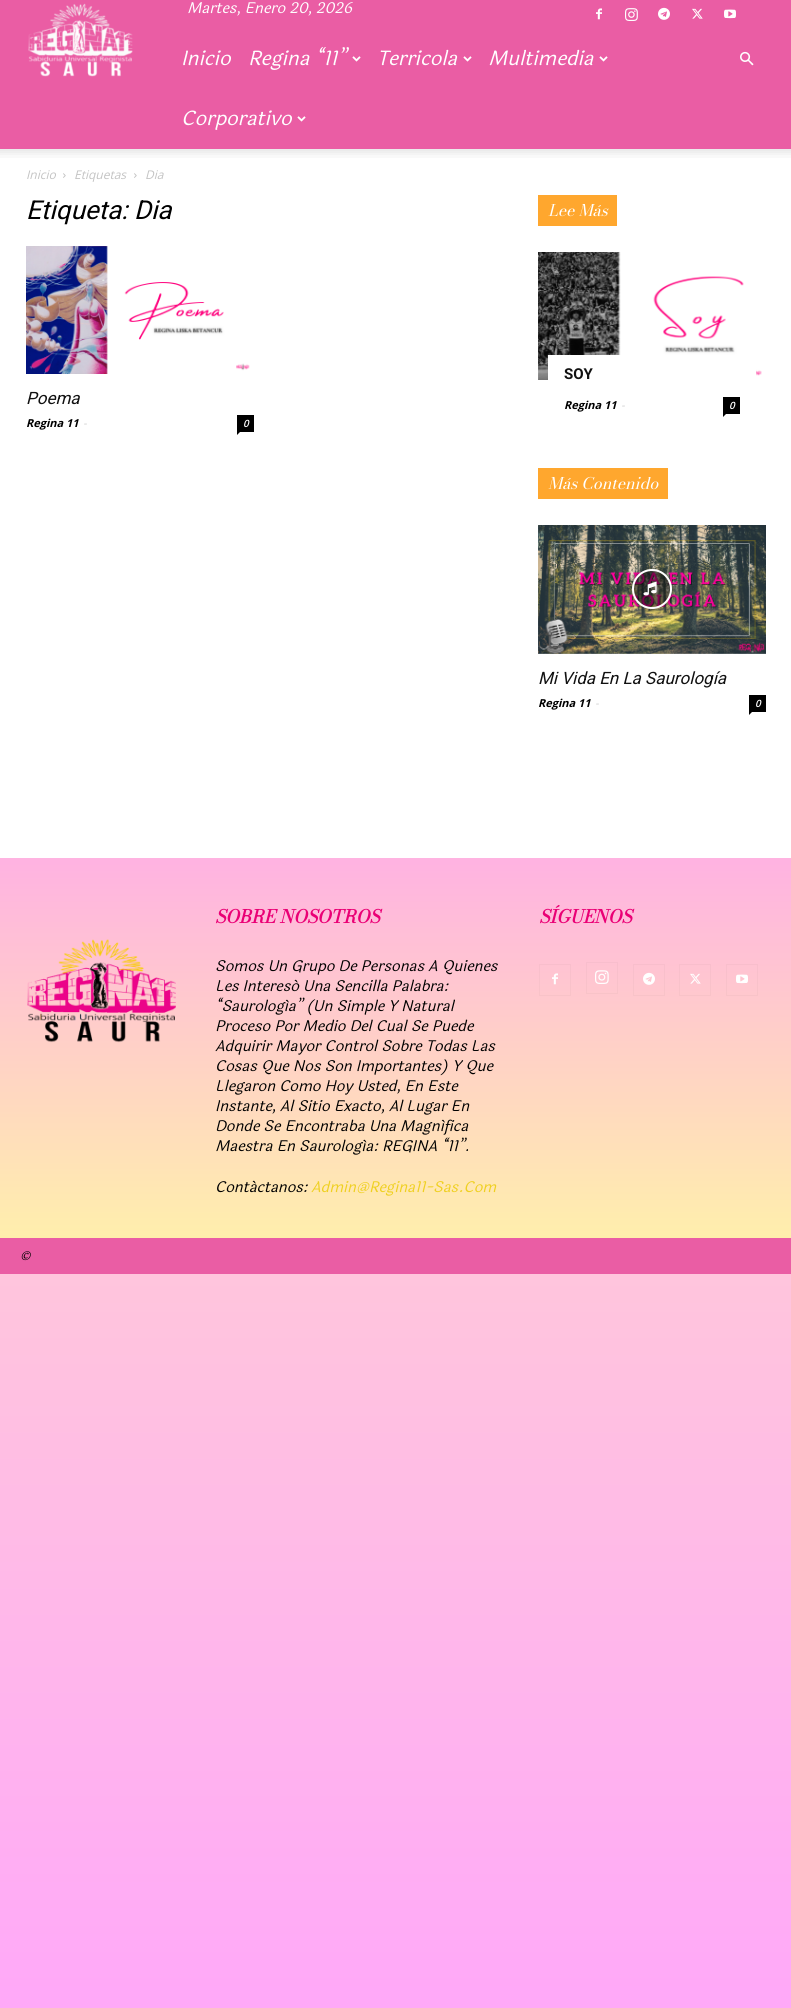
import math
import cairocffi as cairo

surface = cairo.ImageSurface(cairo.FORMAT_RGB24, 791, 2008)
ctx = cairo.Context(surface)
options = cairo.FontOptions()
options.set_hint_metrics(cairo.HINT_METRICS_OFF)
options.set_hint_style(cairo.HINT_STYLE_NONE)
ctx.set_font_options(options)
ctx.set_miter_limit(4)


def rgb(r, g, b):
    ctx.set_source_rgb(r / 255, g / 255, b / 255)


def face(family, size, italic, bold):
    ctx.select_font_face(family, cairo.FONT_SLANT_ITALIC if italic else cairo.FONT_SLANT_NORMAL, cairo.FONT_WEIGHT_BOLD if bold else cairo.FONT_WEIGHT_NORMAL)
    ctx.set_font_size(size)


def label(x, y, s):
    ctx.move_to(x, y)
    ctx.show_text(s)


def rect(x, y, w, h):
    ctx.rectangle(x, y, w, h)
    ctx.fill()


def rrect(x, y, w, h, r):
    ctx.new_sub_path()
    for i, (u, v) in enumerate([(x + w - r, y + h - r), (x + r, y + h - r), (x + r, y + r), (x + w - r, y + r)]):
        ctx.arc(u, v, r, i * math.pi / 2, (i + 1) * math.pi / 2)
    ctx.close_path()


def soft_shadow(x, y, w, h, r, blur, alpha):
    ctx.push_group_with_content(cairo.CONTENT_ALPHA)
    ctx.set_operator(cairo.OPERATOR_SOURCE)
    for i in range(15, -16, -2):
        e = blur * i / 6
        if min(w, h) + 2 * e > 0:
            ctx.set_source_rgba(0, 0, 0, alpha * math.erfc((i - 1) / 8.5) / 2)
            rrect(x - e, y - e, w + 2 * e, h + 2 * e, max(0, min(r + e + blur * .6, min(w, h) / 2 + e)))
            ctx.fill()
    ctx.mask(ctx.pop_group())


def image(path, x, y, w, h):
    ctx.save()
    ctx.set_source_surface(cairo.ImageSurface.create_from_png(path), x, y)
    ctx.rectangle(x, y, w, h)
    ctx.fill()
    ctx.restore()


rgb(255, 255, 255)
ctx.paint()
rgb(234, 93, 164)
rect(0, 0, 791, 149)
image('image0.png', 28, 3, 105, 74)
face('Laila', 15, 1, 0)
rgb(255, 255, 255)
label(187, 13, 'Martes, Enero 20, 2026')
image('image1.png', 596, 8, 6, 12)
image('image2.png', 625, 8, 13, 13)
image('image3.png', 658, 7, 12, 13)
image('image4.png', 692, 8, 11, 11)
image('image5.png', 724, 9, 12, 10)
face('Laila', 20, 1, 0)
label(181, 65, 'Inicio')
label(248, 65, 'Regina “11”')
image('image6.png', 352, 56, 9, 6)
label(377, 65, 'Terricola')
image('image6.png', 463, 56, 9, 6)
label(488, 65, 'Multimedia')
image('image6.png', 599, 56, 9, 6)
label(181, 125, 'Corporativo')
image('image6.png', 297, 116, 9, 6)
image('image7.png', 740, 51, 14, 15)
image('image8.png', 0, 149, 791, 9)
face('Open Sans', 12, 1, 0)
rgb(195, 195, 195)
label(26, 179, 'Inicio')
image('image9.png', 63, 173, 3, 5)
label(74, 179, 'Etiquetas')
image('image9.png', 134, 173, 3, 5)
label(145, 179, 'Dia')
face('Roboto', 26, 1, 0)
rgb(0, 0, 0)
label(26, 219, 'Etiqueta: Dia')
image('image10.png', 26, 246, 224, 128)
face('Roboto', 17, 1, 0)
rgb(17, 17, 17)
label(26, 404, 'Poema')
face('Open Sans', 11, 1, 1)
rgb(0, 0, 0)
label(26, 427, 'Regina 11')
face('Open Sans', 11, 1, 0)
rgb(204, 204, 204)
label(83, 427, '-')
rgb(0, 0, 0)
rect(237, 415, 17, 17)
face('Open Sans SemiBold', 10, 1, 0)
rgb(255, 255, 255)
label(243, 427, '0')
rgb(0, 0, 0)
ctx.new_path()
ctx.move_to(237, 432)
ctx.line_to(240, 432)
ctx.line_to(237, 435)
ctx.close_path()
ctx.fill()
rgb(255, 167, 46)
rect(538, 195, 79, 31)
face('Bodoni Moda', 16, 1, 0)
rgb(255, 255, 255)
label(548, 216, 'Lee Más')
image('image11.png', 538, 252, 224, 128)
rect(548, 355, 208, 25)
face('Roboto', 15, 0, 1)
rgb(17, 17, 17)
label(564, 379, 'SOY')
face('Open Sans', 11, 1, 1)
rgb(0, 0, 0)
label(564, 409, 'Regina 11')
face('Open Sans', 11, 1, 0)
rgb(204, 204, 204)
label(621, 409, '-')
rgb(0, 0, 0)
rect(723, 397, 17, 17)
face('Open Sans SemiBold', 10, 1, 0)
rgb(255, 255, 255)
label(729, 409, '0')
rgb(0, 0, 0)
ctx.new_path()
ctx.move_to(723, 414)
ctx.line_to(726, 414)
ctx.line_to(723, 417)
ctx.close_path()
ctx.fill()
rgb(255, 167, 46)
rect(538, 468, 130, 31)
face('Bodoni Moda', 16, 1, 0)
rgb(255, 255, 255)
label(548, 489, 'Más Contenido')
image('image12.png', 538, 525, 228, 129)
ctx.save()
ctx.set_fill_rule(cairo.FILL_RULE_EVEN_ODD)
ctx.new_path()
ctx.move_to(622, 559)
ctx.line_to(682, 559)
ctx.line_to(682, 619)
ctx.line_to(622, 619)
ctx.close_path()
ctx.move_to(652, 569)
ctx.curve_to(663, 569, 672, 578, 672, 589)
ctx.curve_to(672, 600, 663, 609, 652, 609)
ctx.curve_to(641, 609, 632, 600, 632, 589)
ctx.curve_to(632, 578, 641, 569, 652, 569)
ctx.close_path()
ctx.clip()
rgb(0, 0, 0)
soft_shadow(632, 569, 40, 40, 20, 3, 0.4)
ctx.restore()
ctx.set_source_rgba(0, 0, 0, 0.48)
ctx.arc(652, 589, 19, 0, 2 * math.pi)
ctx.fill_preserve()
rgb(255, 255, 255)
ctx.stroke()
image('image13.png', 643, 581, 14, 15)
face('Roboto', 17, 1, 0)
rgb(17, 17, 17)
label(538, 684, 'Mi Vida En La Saurología')
face('Open Sans', 11, 1, 1)
rgb(0, 0, 0)
label(538, 707, 'Regina 11')
face('Open Sans', 11, 1, 0)
rgb(204, 204, 204)
label(595, 707, '-')
rgb(0, 0, 0)
rect(749, 695, 17, 17)
face('Open Sans SemiBold', 10, 1, 0)
rgb(255, 255, 255)
label(755, 707, '0')
rgb(0, 0, 0)
ctx.new_path()
ctx.move_to(749, 712)
ctx.line_to(752, 712)
ctx.line_to(749, 715)
ctx.close_path()
ctx.fill()
image('image14.png', 0, 858, 791, 380)
image('image15.png', 27, 939, 149, 104)
face('Bodoni Moda', 18, 1, 1)
rgb(234, 0, 117)
label(215, 923, 'SOBRE NOSOTROS')
face('Laila', 15, 1, 0)
rgb(0, 0, 0)
label(215, 971, 'Somos Un Grupo De Personas A Quienes')
label(215, 991, 'Les Interesó Una Sencilla Palabra:')
label(215, 1011, '“Saurología” (Un Simple Y Natural')
label(215, 1031, 'Proceso Por Medio Del Cual Se Puede')
label(215, 1051, 'Adquirir Mayor Control Sobre Todas Las')
label(215, 1071, 'Cosas Que Nos Son Importantes) Y Que')
label(215, 1091, 'Llegaron Como Hoy Usted, En Este')
label(215, 1111, 'Instante, Al Sitio Exacto, Al Lugar En')
label(215, 1131, 'Donde Se Encontraba Una Magnífica')
label(215, 1151, 'Maestra En Saurología: REGINA “11”.')
label(215, 1192, 'Contáctanos:')
rgb(239, 208, 33)
label(311, 1192, 'Admin@Regina11-Sas.Com')
face('Bodoni Moda', 18, 1, 1)
rgb(234, 0, 117)
label(539, 923, 'SÍGUENOS')
image('image16.png', 552, 973, 6, 12)
ctx.rectangle(539.5, 964.5, 31, 31)
ctx.set_source_rgba(0, 0, 0, 0.03)
ctx.set_line_width(1)
ctx.stroke()
image('image17.png', 595, 970, 14, 14)
ctx.rectangle(586.5, 962.5, 31, 31)
ctx.stroke()
image('image18.png', 643, 972, 12, 13)
ctx.rectangle(633.5, 964.5, 31, 31)
ctx.stroke()
image('image19.png', 690, 973, 11, 11)
ctx.rectangle(679.5, 964.5, 31, 31)
ctx.stroke()
image('image20.png', 736, 974, 12, 10)
ctx.rectangle(726.5, 964.5, 31, 31)
ctx.stroke()
rgb(234, 93, 164)
rect(0, 1238, 791, 36)
face('Laila', 12, 1, 0)
rgb(0, 0, 0)
label(20, 1260, '©')
image('image21.png', 0, 1274, 791, 734)
surface.write_to_png('render.png')
